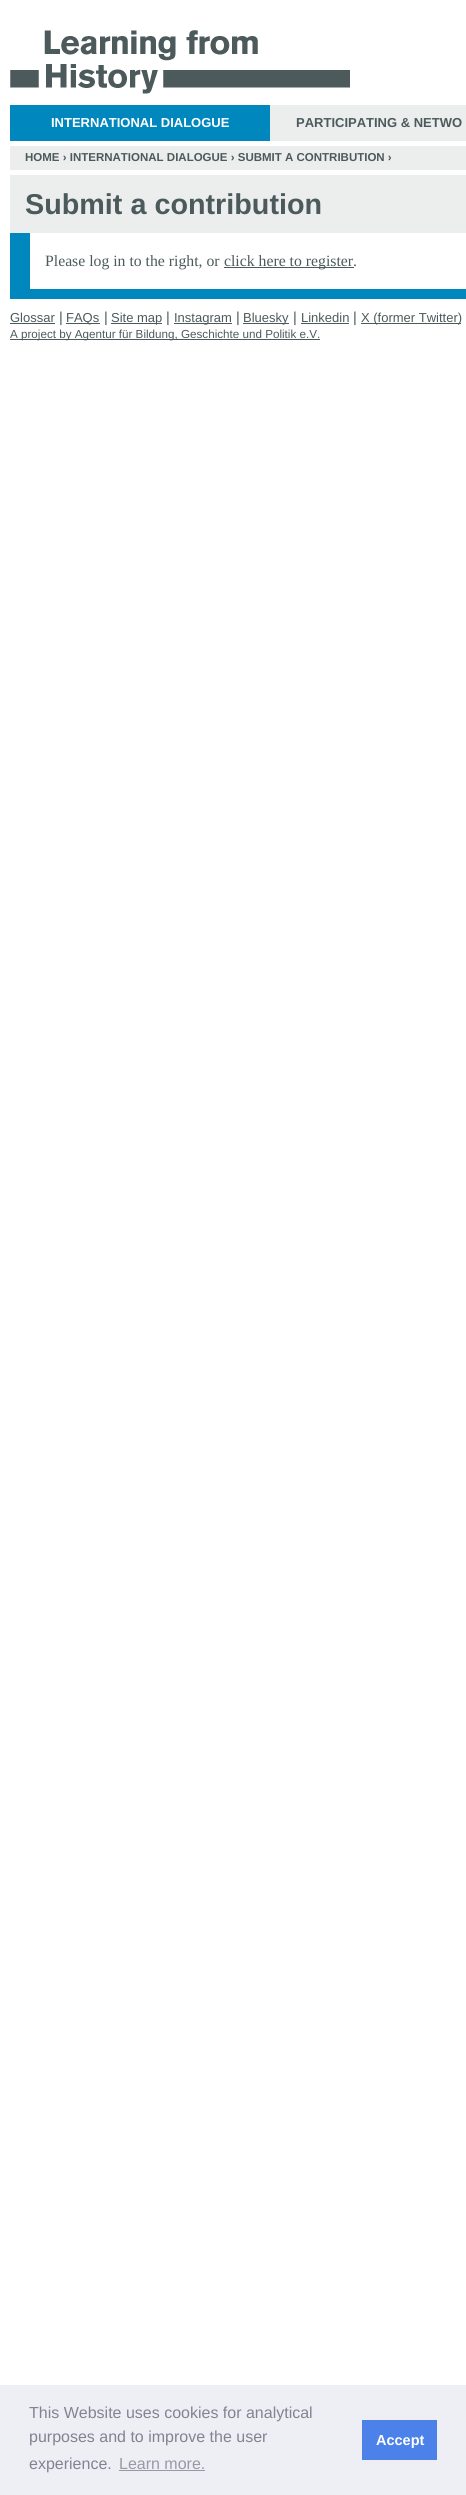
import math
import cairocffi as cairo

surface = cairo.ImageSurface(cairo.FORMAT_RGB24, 466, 2495)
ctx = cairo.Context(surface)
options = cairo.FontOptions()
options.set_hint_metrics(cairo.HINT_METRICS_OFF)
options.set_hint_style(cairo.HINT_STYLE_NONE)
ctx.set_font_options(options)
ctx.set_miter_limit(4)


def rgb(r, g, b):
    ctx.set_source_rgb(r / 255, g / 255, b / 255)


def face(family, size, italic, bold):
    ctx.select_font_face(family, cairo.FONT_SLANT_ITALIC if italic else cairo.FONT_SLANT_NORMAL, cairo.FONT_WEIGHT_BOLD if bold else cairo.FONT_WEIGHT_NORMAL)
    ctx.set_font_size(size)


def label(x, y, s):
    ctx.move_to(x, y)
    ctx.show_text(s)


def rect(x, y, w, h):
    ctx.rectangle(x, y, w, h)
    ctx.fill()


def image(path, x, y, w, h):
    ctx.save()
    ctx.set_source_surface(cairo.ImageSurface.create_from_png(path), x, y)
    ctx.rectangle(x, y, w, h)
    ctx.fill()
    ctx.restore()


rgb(255, 255, 255)
ctx.paint()
image('image0.png', 10, 30, 340, 64)
rgb(0, 135, 190)
rect(10, 105, 260, 36)
face('Liberation Sans', 13, 0, 1)
rgb(255, 255, 255)
label(51, 127, 'INTERNATIONAL DIALOGUE')
rgb(236, 238, 237)
rect(270, 105, 196, 36)
rgb(76, 90, 91)
label(296, 127, 'PARTICIPATING & NETWO')
rgb(236, 238, 237)
rect(10, 146, 456, 24)
face('Liberation Sans', 11.5, 0, 1)
rgb(76, 90, 91)
label(25, 161, 'HOME › INTERNATIONAL DIALOGUE › SUBMIT A CONTRIBUTION ›')
rgb(236, 238, 237)
rect(10, 175, 456, 58)
face('Liberation Sans', 28.75, 0, 1)
rgb(76, 90, 91)
label(25, 214, 'Submit a contribution')
rgb(0, 135, 190)
rect(10, 233, 456, 66)
rgb(255, 255, 255)
rect(30, 233, 436, 56)
face('Liberation Serif', 15.75, 0, 0)
rgb(76, 90, 91)
label(45, 266, 'Please log in to the right, or')
rect(224, 267, 130, 1)
label(224, 266, 'click here to register.')
face('Liberation Sans', 13, 0, 0)
label(10, 322, 'Glossar')
rect(10, 323, 45, 1)
face('Liberation Sans', 14.5, 0, 0)
label(59, 322, '|')
rect(66, 323, 34, 1)
face('Liberation Sans', 13, 0, 0)
label(66, 322, 'FAQs')
face('Liberation Sans', 14.5, 0, 0)
label(104, 322, '|')
rect(111, 323, 51, 1)
face('Liberation Sans', 13, 0, 0)
label(111, 322, 'Site map')
face('Liberation Sans', 14.5, 0, 0)
label(166, 322, '|')
rect(174, 323, 58, 1)
face('Liberation Sans', 13, 0, 0)
label(174, 322, 'Instagram')
face('Liberation Sans', 14.5, 0, 0)
label(236, 322, '|')
rect(243, 323, 46, 1)
face('Liberation Sans', 13, 0, 0)
label(243, 322, 'Bluesky')
face('Liberation Sans', 14.5, 0, 0)
label(293, 322, '|')
face('Liberation Sans', 13, 0, 0)
label(301, 322, 'Linkedin')
rect(301, 323, 48, 1)
face('Liberation Sans', 14.5, 0, 0)
label(353, 322, '|')
rect(361, 323, 100, 1)
face('Liberation Sans', 13, 0, 0)
label(361, 322, 'X (former Twitter)')
rect(10, 339, 310, 1)
face('Liberation Sans', 11.65, 0, 0)
label(10, 338, 'A project by Agentur für Bildung, Geschichte und Politik e.V.')
rgb(237, 239, 245)
rect(0, 2385, 466, 110)
face('Liberation Sans', 16, 0, 0)
rgb(131, 131, 145)
label(29, 2418, 'This Website uses cookies for analytical')
label(29, 2442, 'purposes and to improve the user')
label(29, 2469, 'experience.')
rgb(152, 153, 165)
label(119, 2469, 'Learn more.')
rect(119, 2470, 86, 1)
rgb(75, 129, 232)
rect(362, 2420, 75, 40)
face('Liberation Sans', 14.5, 0, 1)
rgb(255, 255, 255)
label(376, 2445, 'Accept')
surface.write_to_png('render.png')
